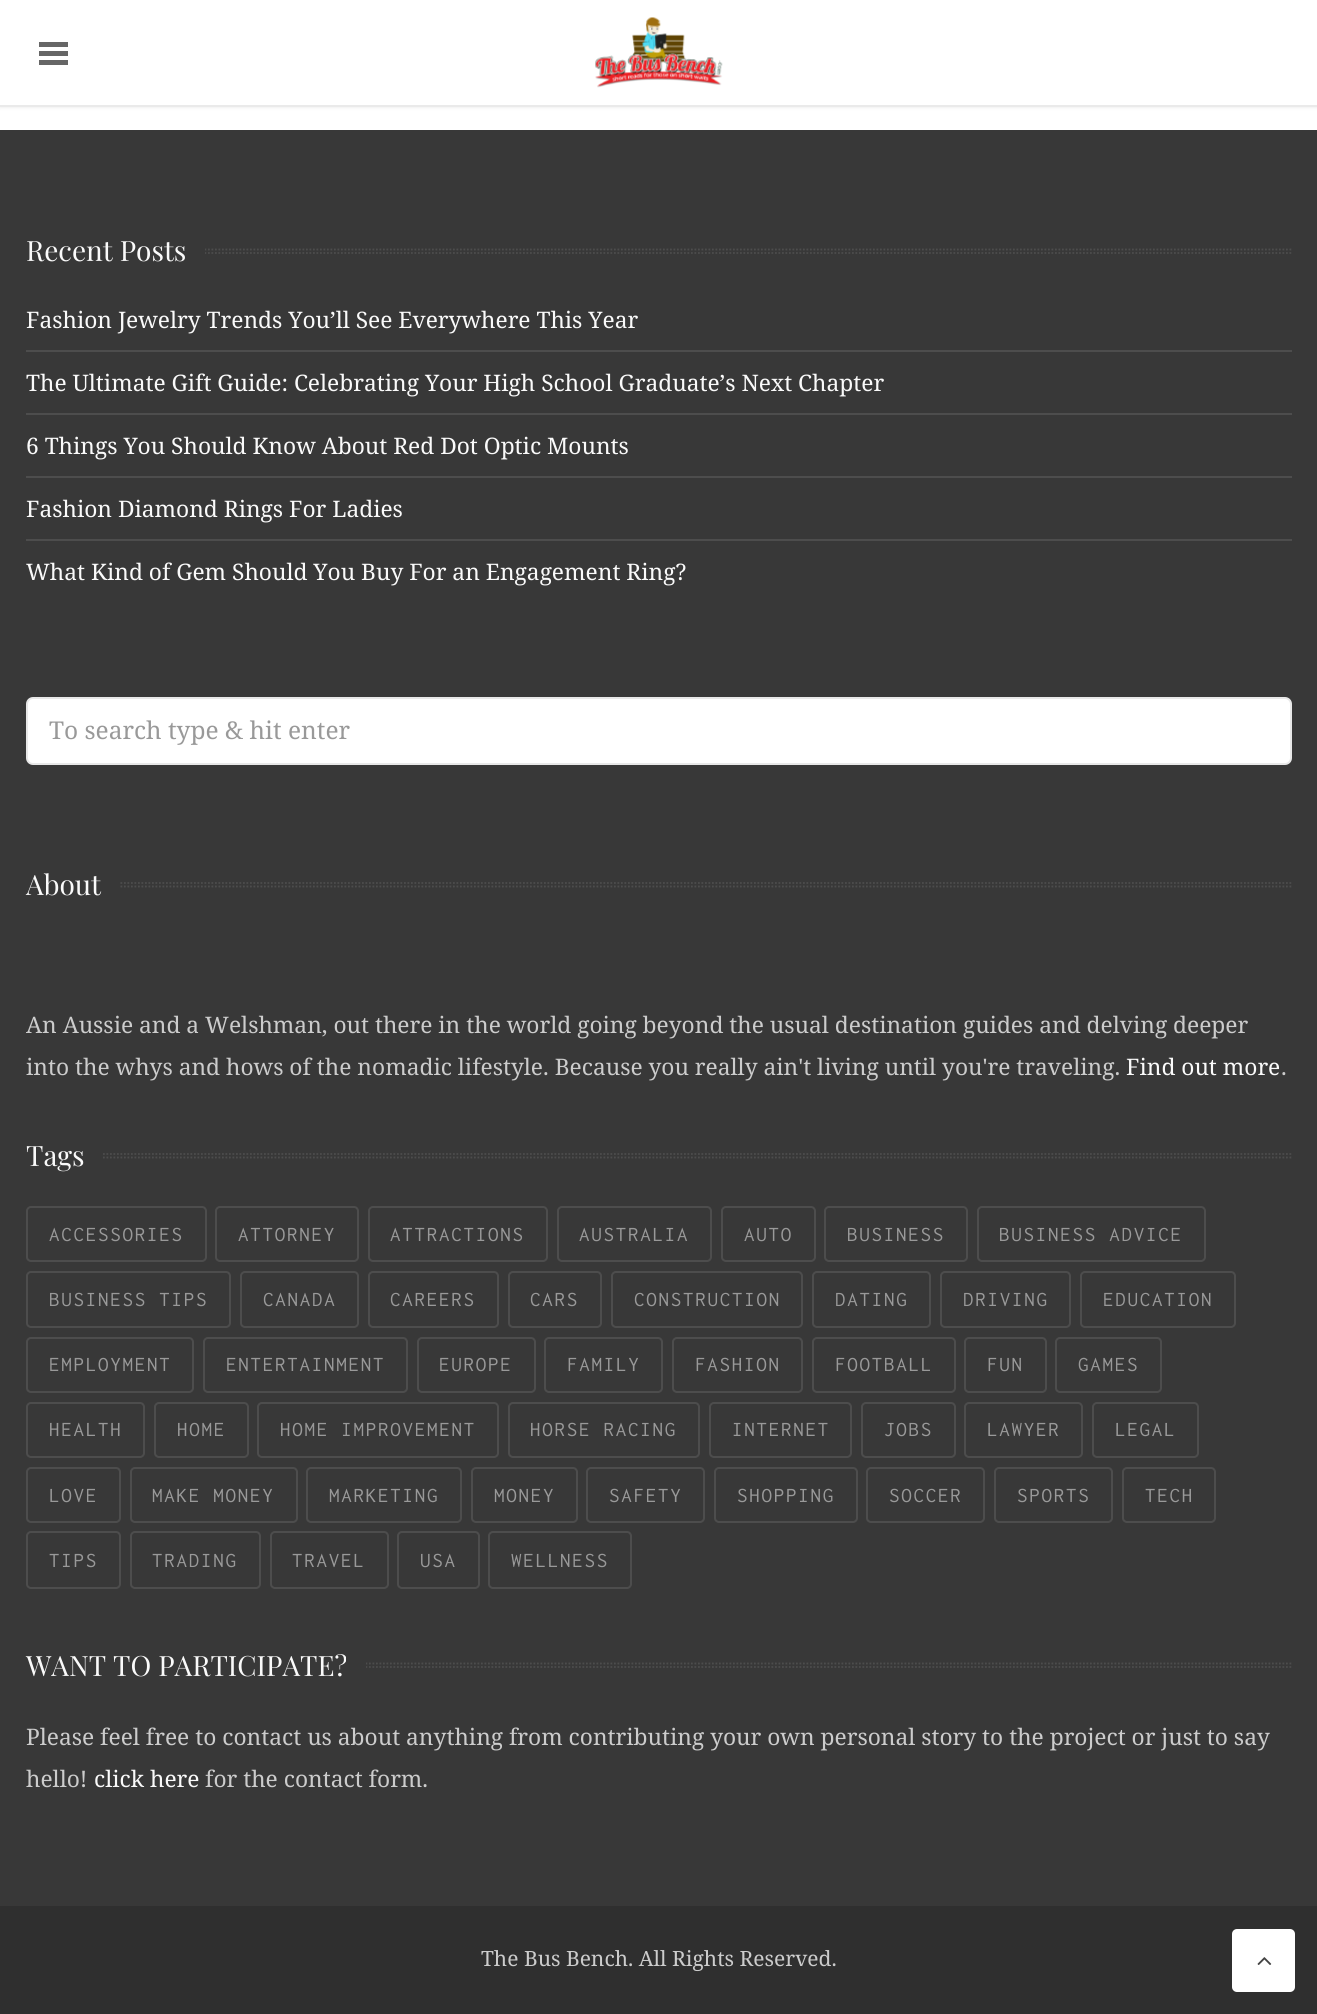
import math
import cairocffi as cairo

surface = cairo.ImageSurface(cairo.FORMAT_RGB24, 1317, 2014)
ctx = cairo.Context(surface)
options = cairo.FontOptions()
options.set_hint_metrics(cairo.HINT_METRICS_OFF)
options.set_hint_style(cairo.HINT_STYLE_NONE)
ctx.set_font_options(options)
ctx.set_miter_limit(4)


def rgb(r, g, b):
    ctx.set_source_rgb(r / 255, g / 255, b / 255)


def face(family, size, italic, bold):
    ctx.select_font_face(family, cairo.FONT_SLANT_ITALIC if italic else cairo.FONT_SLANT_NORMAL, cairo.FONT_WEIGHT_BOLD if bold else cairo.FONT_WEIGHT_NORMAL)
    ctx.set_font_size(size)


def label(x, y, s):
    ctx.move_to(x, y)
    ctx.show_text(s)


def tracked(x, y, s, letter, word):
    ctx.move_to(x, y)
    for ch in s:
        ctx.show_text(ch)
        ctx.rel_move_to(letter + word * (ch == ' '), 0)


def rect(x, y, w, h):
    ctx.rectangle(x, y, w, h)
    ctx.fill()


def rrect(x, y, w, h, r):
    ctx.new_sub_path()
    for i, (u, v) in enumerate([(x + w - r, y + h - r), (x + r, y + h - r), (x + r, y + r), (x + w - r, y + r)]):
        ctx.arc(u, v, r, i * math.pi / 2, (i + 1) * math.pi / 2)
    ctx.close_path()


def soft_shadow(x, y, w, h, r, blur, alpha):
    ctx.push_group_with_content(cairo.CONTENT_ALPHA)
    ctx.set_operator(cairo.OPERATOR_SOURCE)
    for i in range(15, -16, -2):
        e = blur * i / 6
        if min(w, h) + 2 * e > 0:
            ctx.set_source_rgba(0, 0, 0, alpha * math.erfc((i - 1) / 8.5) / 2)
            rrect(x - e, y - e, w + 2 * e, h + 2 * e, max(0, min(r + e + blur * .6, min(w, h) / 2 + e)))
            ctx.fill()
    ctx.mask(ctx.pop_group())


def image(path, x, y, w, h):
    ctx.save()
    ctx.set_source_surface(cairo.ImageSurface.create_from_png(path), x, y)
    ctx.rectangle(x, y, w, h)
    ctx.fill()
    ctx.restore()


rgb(56, 56, 56)
ctx.paint()
rgb(255, 255, 255)
rect(0, 107, 1317, 23)
rgb(0, 0, 0)
soft_shadow(0, 2, 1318, 105, 0, 2, 0.1)
rgb(255, 255, 255)
rect(0, 0, 1317, 105)
rgb(102, 102, 102)
rect(39, 51, 29, 5)
rect(39, 42, 29, 5)
rect(39, 60, 29, 5)
image('image0.png', 595, 17, 128, 71)
rgb(234, 234, 234)
rect(0, 105, 1317, 2)
ctx.new_path()
ctx.move_to(26, 249.5)
ctx.line_to(1291.5, 249.5)
rgb(77, 77, 77)
ctx.set_line_width(1.8)
ctx.set_dash([1.75, 1.75])
ctx.stroke()
ctx.new_path()
ctx.move_to(26, 253)
ctx.line_to(1291.5, 253)
ctx.stroke()
rgb(56, 56, 56)
rect(26, 248, 179, 6)
face('Playfair Display', 28, 0, 0)
rgb(250, 250, 250)
label(26, 261, 'Recent Posts')
face('Noto Serif', 22.75, 0, 0)
label(26, 328, 'Fashion Jewelry Trends You’ll See Everywhere This Year')
rgb(77, 77, 77)
rect(26, 350, 1266, 2)
rgb(250, 250, 250)
label(26, 391, 'The Ultimate Gift Guide: Celebrating Your High School Graduate’s Next Chapter')
rgb(77, 77, 77)
rect(26, 413, 1266, 2)
rgb(250, 250, 250)
label(26, 454, '6 Things You Should Know About Red Dot Optic Mounts')
rgb(77, 77, 77)
rect(26, 476, 1266, 2)
rgb(250, 250, 250)
label(26, 517, 'Fashion Diamond Rings For Ladies')
rgb(77, 77, 77)
rect(26, 539, 1266, 2)
rgb(250, 250, 250)
label(26, 580, 'What Kind of Gem Should You Buy For an Engagement Ring?')
rgb(255, 255, 255)
rrect(27, 698, 1264, 66, 6)
ctx.fill_preserve()
rgb(232, 232, 232)
ctx.set_line_width(2)
ctx.set_dash([])
ctx.stroke()
face('Noto Serif', 24.5, 0, 0)
rgb(153, 153, 153)
label(49, 739, 'To search type & hit enter')
ctx.new_path()
ctx.move_to(26, 883)
ctx.line_to(1291.5, 883)
rgb(77, 77, 77)
ctx.set_line_width(1.8)
ctx.set_dash([1.75, 1.75])
ctx.stroke()
ctx.new_path()
ctx.move_to(26, 886.5)
ctx.line_to(1291.5, 886.5)
ctx.stroke()
rgb(56, 56, 56)
rect(26, 882, 93, 6)
face('Playfair Display', 28, 0, 0)
rgb(250, 250, 250)
label(26, 895, 'About')
face('Noto Serif', 22.75, 0, 0)
rgb(204, 204, 204)
label(26, 1033, 'An Aussie and a Welshman, out there in the world going beyond the usual destination guides and delving deeper')
label(26, 1075, 'into the whys and hows of the nomadic lifestyle. Because you really ain\'t living until you\'re traveling.')
rgb(250, 250, 250)
label(1126, 1075, 'Find out more')
rgb(204, 204, 204)
label(1281, 1075, '.')
ctx.new_path()
ctx.move_to(26, 1154)
ctx.line_to(1291.5, 1154)
rgb(77, 77, 77)
ctx.stroke()
ctx.new_path()
ctx.move_to(26, 1157.5)
ctx.line_to(1291.5, 1157.5)
ctx.stroke()
rgb(56, 56, 56)
rect(26, 1153, 76, 6)
face('Playfair Display', 28, 0, 0)
rgb(250, 250, 250)
label(26, 1166, 'Tags')
rrect(27, 1207, 179, 54, 4)
rgb(77, 77, 77)
ctx.set_line_width(2)
ctx.set_dash([])
ctx.stroke()
face('Inconsolata', 21, 0, 0)
rgb(153, 153, 153)
tracked(49, 1241, 'ACCESSORIES', 1.75, 0)
rrect(216, 1207, 142, 54, 4)
rgb(77, 77, 77)
ctx.stroke()
rgb(153, 153, 153)
tracked(238, 1241, 'ATTORNEY', 1.75, 0)
rrect(369, 1207, 178, 54, 4)
rgb(77, 77, 77)
ctx.stroke()
rgb(153, 153, 153)
tracked(390, 1241, 'ATTRACTIONS', 1.75, 0)
rrect(558, 1207, 153, 54, 4)
rgb(77, 77, 77)
ctx.stroke()
rgb(153, 153, 153)
tracked(579, 1241, 'AUSTRALIA', 1.75, 0)
rrect(722, 1207, 93, 54, 4)
rgb(77, 77, 77)
ctx.stroke()
rgb(153, 153, 153)
tracked(744, 1241, 'AUTO', 1.75, 0)
rrect(825, 1207, 142, 54, 4)
rgb(77, 77, 77)
ctx.stroke()
rgb(153, 153, 153)
tracked(847, 1241, 'BUSINESS', 1.75, 0)
rrect(978, 1207, 227, 54, 4)
rgb(77, 77, 77)
ctx.stroke()
rgb(153, 153, 153)
tracked(999, 1241, 'BUSINESS ADVICE', 1.75, 0)
rrect(27, 1272, 203, 55, 4)
rgb(77, 77, 77)
ctx.stroke()
rgb(153, 153, 153)
tracked(49, 1306, 'BUSINESS TIPS', 1.75, 0)
rrect(241, 1272, 117, 55, 4)
rgb(77, 77, 77)
ctx.stroke()
rgb(153, 153, 153)
tracked(263, 1306, 'CANADA', 1.75, 0)
rrect(369, 1272, 129, 55, 4)
rgb(77, 77, 77)
ctx.stroke()
rgb(153, 153, 153)
tracked(390, 1306, 'CAREERS', 1.75, 0)
rrect(509, 1272, 92, 55, 4)
rgb(77, 77, 77)
ctx.stroke()
rgb(153, 153, 153)
tracked(530, 1306, 'CARS', 1.75, 0)
rrect(612, 1272, 190, 55, 4)
rgb(77, 77, 77)
ctx.stroke()
rgb(153, 153, 153)
tracked(634, 1306, 'CONSTRUCTION', 1.75, 0)
rrect(813, 1272, 117, 55, 4)
rgb(77, 77, 77)
ctx.stroke()
rgb(153, 153, 153)
tracked(835, 1306, 'DATING', 1.75, 0)
rrect(941, 1272, 129, 55, 4)
rgb(77, 77, 77)
ctx.stroke()
rgb(153, 153, 153)
tracked(963, 1306, 'DRIVING', 1.75, 0)
rrect(1081, 1272, 154, 55, 4)
rgb(77, 77, 77)
ctx.stroke()
rgb(153, 153, 153)
tracked(1103, 1306, 'EDUCATION', 1.75, 0)
rrect(27, 1338, 166, 54, 4)
rgb(77, 77, 77)
ctx.stroke()
rgb(153, 153, 153)
tracked(49, 1371, 'EMPLOYMENT', 1.75, 0)
rrect(204, 1338, 203, 54, 4)
rgb(77, 77, 77)
ctx.stroke()
rgb(153, 153, 153)
tracked(226, 1371, 'ENTERTAINMENT', 1.75, 0)
rrect(418, 1338, 117, 54, 4)
rgb(77, 77, 77)
ctx.stroke()
rgb(153, 153, 153)
tracked(439, 1371, 'EUROPE', 1.75, 0)
rrect(545, 1338, 117, 54, 4)
rgb(77, 77, 77)
ctx.stroke()
rgb(153, 153, 153)
tracked(567, 1371, 'FAMILY', 1.75, 0)
rrect(673, 1338, 129, 54, 4)
rgb(77, 77, 77)
ctx.stroke()
rgb(153, 153, 153)
tracked(695, 1371, 'FASHION', 1.75, 0)
rrect(813, 1338, 142, 54, 4)
rgb(77, 77, 77)
ctx.stroke()
rgb(153, 153, 153)
tracked(835, 1371, 'FOOTBALL', 1.75, 0)
rrect(965, 1338, 81, 54, 4)
rgb(77, 77, 77)
ctx.stroke()
rgb(153, 153, 153)
tracked(987, 1371, 'FUN', 1.75, 0)
rrect(1056, 1338, 105, 54, 4)
rgb(77, 77, 77)
ctx.stroke()
rgb(153, 153, 153)
tracked(1078, 1371, 'GAMES', 1.75, 0)
rrect(27, 1403, 117, 54, 4)
rgb(77, 77, 77)
ctx.stroke()
rgb(153, 153, 153)
tracked(49, 1436, 'HEALTH', 1.75, 0)
rrect(155, 1403, 93, 54, 4)
rgb(77, 77, 77)
ctx.stroke()
rgb(153, 153, 153)
tracked(177, 1436, 'HOME', 1.75, 0)
rrect(258, 1403, 240, 54, 4)
rgb(77, 77, 77)
ctx.stroke()
rgb(153, 153, 153)
tracked(280, 1436, 'HOME IMPROVEMENT', 1.75, 0)
rrect(509, 1403, 190, 54, 4)
rgb(77, 77, 77)
ctx.stroke()
rgb(153, 153, 153)
tracked(530, 1436, 'HORSE RACING', 1.75, 0)
rrect(710, 1403, 141, 54, 4)
rgb(77, 77, 77)
ctx.stroke()
rgb(153, 153, 153)
tracked(732, 1436, 'INTERNET', 1.75, 0)
rrect(862, 1403, 93, 54, 4)
rgb(77, 77, 77)
ctx.stroke()
rgb(153, 153, 153)
tracked(884, 1436, 'JOBS', 1.75, 0)
rrect(965, 1403, 117, 54, 4)
rgb(77, 77, 77)
ctx.stroke()
rgb(153, 153, 153)
tracked(987, 1436, 'LAWYER', 1.75, 0)
rrect(1093, 1403, 105, 54, 4)
rgb(77, 77, 77)
ctx.stroke()
rgb(153, 153, 153)
tracked(1115, 1436, 'LEGAL', 1.75, 0)
rrect(27, 1468, 93, 54, 4)
rgb(77, 77, 77)
ctx.stroke()
rgb(153, 153, 153)
tracked(49, 1502, 'LOVE', 1.75, 0)
rrect(131, 1468, 166, 54, 4)
rgb(77, 77, 77)
ctx.stroke()
rgb(153, 153, 153)
tracked(152, 1502, 'MAKE MONEY', 1.75, 0)
rrect(307, 1468, 154, 54, 4)
rgb(77, 77, 77)
ctx.stroke()
rgb(153, 153, 153)
tracked(329, 1502, 'MARKETING', 1.75, 0)
rrect(472, 1468, 105, 54, 4)
rgb(77, 77, 77)
ctx.stroke()
rgb(153, 153, 153)
tracked(494, 1502, 'MONEY', 1.75, 0)
rrect(587, 1468, 117, 54, 4)
rgb(77, 77, 77)
ctx.stroke()
rgb(153, 153, 153)
tracked(609, 1502, 'SAFETY', 1.75, 0)
rrect(715, 1468, 142, 54, 4)
rgb(77, 77, 77)
ctx.stroke()
rgb(153, 153, 153)
tracked(737, 1502, 'SHOPPING', 1.75, 0)
rrect(867, 1468, 117, 54, 4)
rgb(77, 77, 77)
ctx.stroke()
rgb(153, 153, 153)
tracked(889, 1502, 'SOCCER', 1.75, 0)
rrect(995, 1468, 117, 54, 4)
rgb(77, 77, 77)
ctx.stroke()
rgb(153, 153, 153)
tracked(1017, 1502, 'SPORTS', 1.75, 0)
rrect(1123, 1468, 92, 54, 4)
rgb(77, 77, 77)
ctx.stroke()
rgb(153, 153, 153)
tracked(1145, 1502, 'TECH', 1.75, 0)
rrect(27, 1532, 93, 56, 4)
rgb(77, 77, 77)
ctx.stroke()
rgb(153, 153, 153)
tracked(49, 1567, 'TIPS', 1.75, 0)
rrect(131, 1532, 129, 56, 4)
rgb(77, 77, 77)
ctx.stroke()
rgb(153, 153, 153)
tracked(152, 1567, 'TRADING', 1.75, 0)
rrect(271, 1532, 117, 56, 4)
rgb(77, 77, 77)
ctx.stroke()
rgb(153, 153, 153)
tracked(292, 1567, 'TRAVEL', 1.75, 0)
rrect(398, 1532, 81, 56, 4)
rgb(77, 77, 77)
ctx.stroke()
rgb(153, 153, 153)
tracked(420, 1567, 'USA', 1.75, 0)
rrect(489, 1532, 142, 56, 4)
rgb(77, 77, 77)
ctx.stroke()
rgb(153, 153, 153)
tracked(511, 1567, 'WELLNESS', 1.75, 0)
ctx.new_path()
ctx.move_to(26, 1663.5)
ctx.line_to(1291.5, 1663.5)
rgb(77, 77, 77)
ctx.set_line_width(1.8)
ctx.set_dash([1.75, 1.75])
ctx.stroke()
ctx.new_path()
ctx.move_to(26, 1667)
ctx.line_to(1291.5, 1667)
ctx.stroke()
rgb(56, 56, 56)
rect(26, 1662, 340, 6)
face('Playfair Display', 28, 0, 0)
rgb(250, 250, 250)
label(26, 1676, 'WANT TO PARTICIPATE?')
face('Noto Serif', 22.75, 0, 0)
rgb(204, 204, 204)
label(26, 1745, 'Please feel free to contact us about anything from contributing your own personal story to the project or just to say')
label(26, 1787, 'hello!')
rgb(250, 250, 250)
label(94, 1787, 'click here')
rgb(204, 204, 204)
label(205, 1787, 'for the contact form.')
rgb(47, 47, 47)
rect(0, 1906, 1317, 108)
face('Noto Serif', 21, 0, 0)
rgb(204, 204, 204)
label(481, 1966, 'The Bus Bench. All Rights Reserved.')
rgb(255, 255, 255)
rrect(1232, 1929, 63, 63, 5)
ctx.fill()
image('image1.png', 1257, 1957, 15, 8)
surface.write_to_png('render.png')
